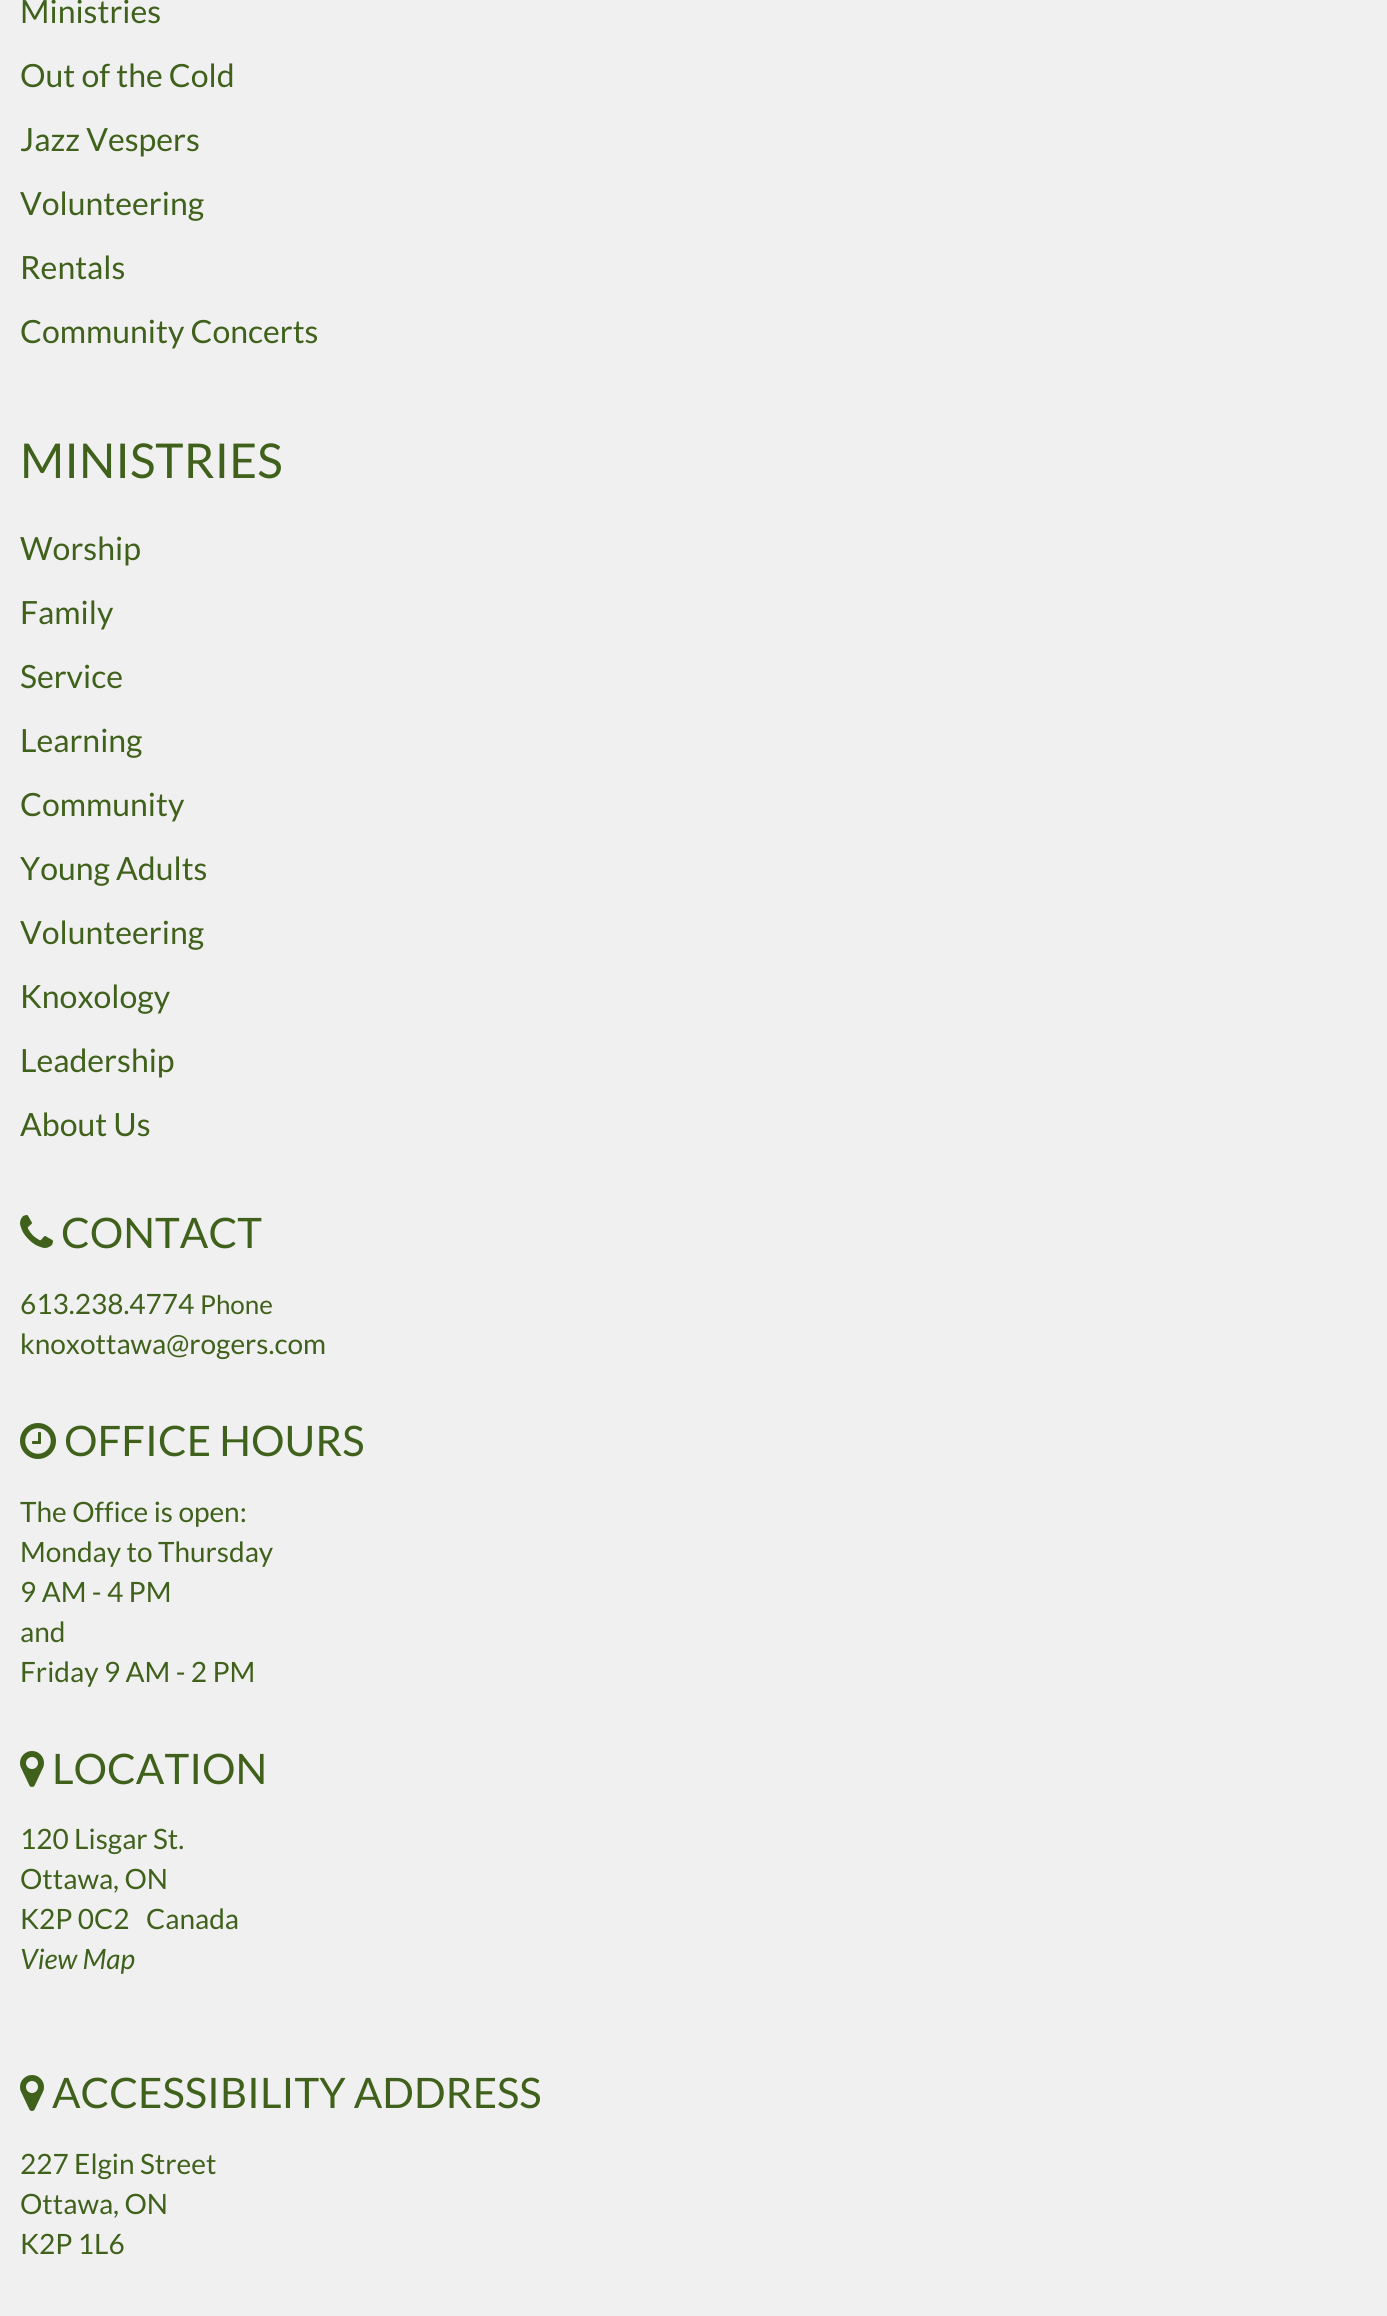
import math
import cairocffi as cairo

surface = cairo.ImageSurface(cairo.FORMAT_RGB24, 1387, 2316)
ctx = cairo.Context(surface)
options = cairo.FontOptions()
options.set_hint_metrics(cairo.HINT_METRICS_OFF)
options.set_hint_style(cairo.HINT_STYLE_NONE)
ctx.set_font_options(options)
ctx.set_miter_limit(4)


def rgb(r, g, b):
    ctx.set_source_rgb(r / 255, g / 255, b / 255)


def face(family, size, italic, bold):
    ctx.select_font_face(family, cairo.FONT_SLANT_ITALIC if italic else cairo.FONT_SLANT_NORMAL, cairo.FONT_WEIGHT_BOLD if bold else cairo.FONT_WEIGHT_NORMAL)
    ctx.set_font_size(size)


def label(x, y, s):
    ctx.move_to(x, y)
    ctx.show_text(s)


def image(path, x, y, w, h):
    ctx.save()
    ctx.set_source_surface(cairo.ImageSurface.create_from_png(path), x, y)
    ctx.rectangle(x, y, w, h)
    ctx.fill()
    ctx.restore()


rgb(240, 240, 240)
ctx.paint()
face('Lato', 32, 0, 0)
rgb(63, 97, 27)
label(20, 23, 'Ministries')
label(20, 87, 'Out of the Cold')
label(20, 151, 'Jazz Vespers')
label(20, 215, 'Volunteering')
label(20, 279, 'Rentals')
label(20, 343, 'Community Concerts')
face('Lato', 48, 0, 0)
label(20, 478, 'MINISTRIES')
face('Lato', 32, 0, 0)
label(20, 560, 'Worship')
label(20, 624, 'Family')
label(20, 688, 'Service')
label(20, 752, 'Learning')
label(20, 816, 'Community')
label(20, 880, 'Young Adults')
label(20, 944, 'Volunteering')
label(20, 1008, 'Knoxology')
label(20, 1072, 'Leadership')
label(20, 1136, 'About Us')
image('image0.png', 20, 1215, 33, 33)
face('Lato', 42, 0, 0)
label(61, 1248, 'CONTACT')
face('Lato', 28, 0, 0)
label(20, 1314, '613.238.4774')
face('Lato', 26, 0, 0)
label(200, 1314, 'Phone')
face('Lato', 28, 0, 0)
label(20, 1354, 'knoxottawa@rogers.com')
image('image1.png', 20, 1423, 36, 36)
face('Lato', 42, 0, 0)
label(64, 1456, 'OFFICE HOURS')
face('Lato', 28, 0, 0)
label(20, 1522, 'The Office is open:')
label(20, 1562, 'Monday to Thursday')
label(20, 1602, '9 AM - 4 PM')
label(20, 1642, 'and')
label(20, 1682, 'Friday 9 AM - 2 PM')
image('image2.png', 20, 1751, 24, 36)
face('Lato', 42, 0, 0)
label(52, 1784, 'LOCATION')
face('Lato', 28, 0, 0)
label(20, 1849, '120 Lisgar St.')
label(20, 1889, 'Ottawa, ON')
label(20, 1929, 'K2P 0C2')
label(146, 1929, 'Canada')
face('Lato', 28, 1, 0)
label(20, 1969, 'View Map')
image('image2.png', 20, 2075, 24, 36)
face('Lato', 42, 0, 0)
label(52, 2108, 'ACCESSIBILITY ADDRESS')
face('Lato', 28, 0, 0)
label(20, 2174, '227 Elgin Street')
label(20, 2214, 'Ottawa, ON')
label(20, 2254, 'K2P 1L6')
surface.write_to_png('render.png')
